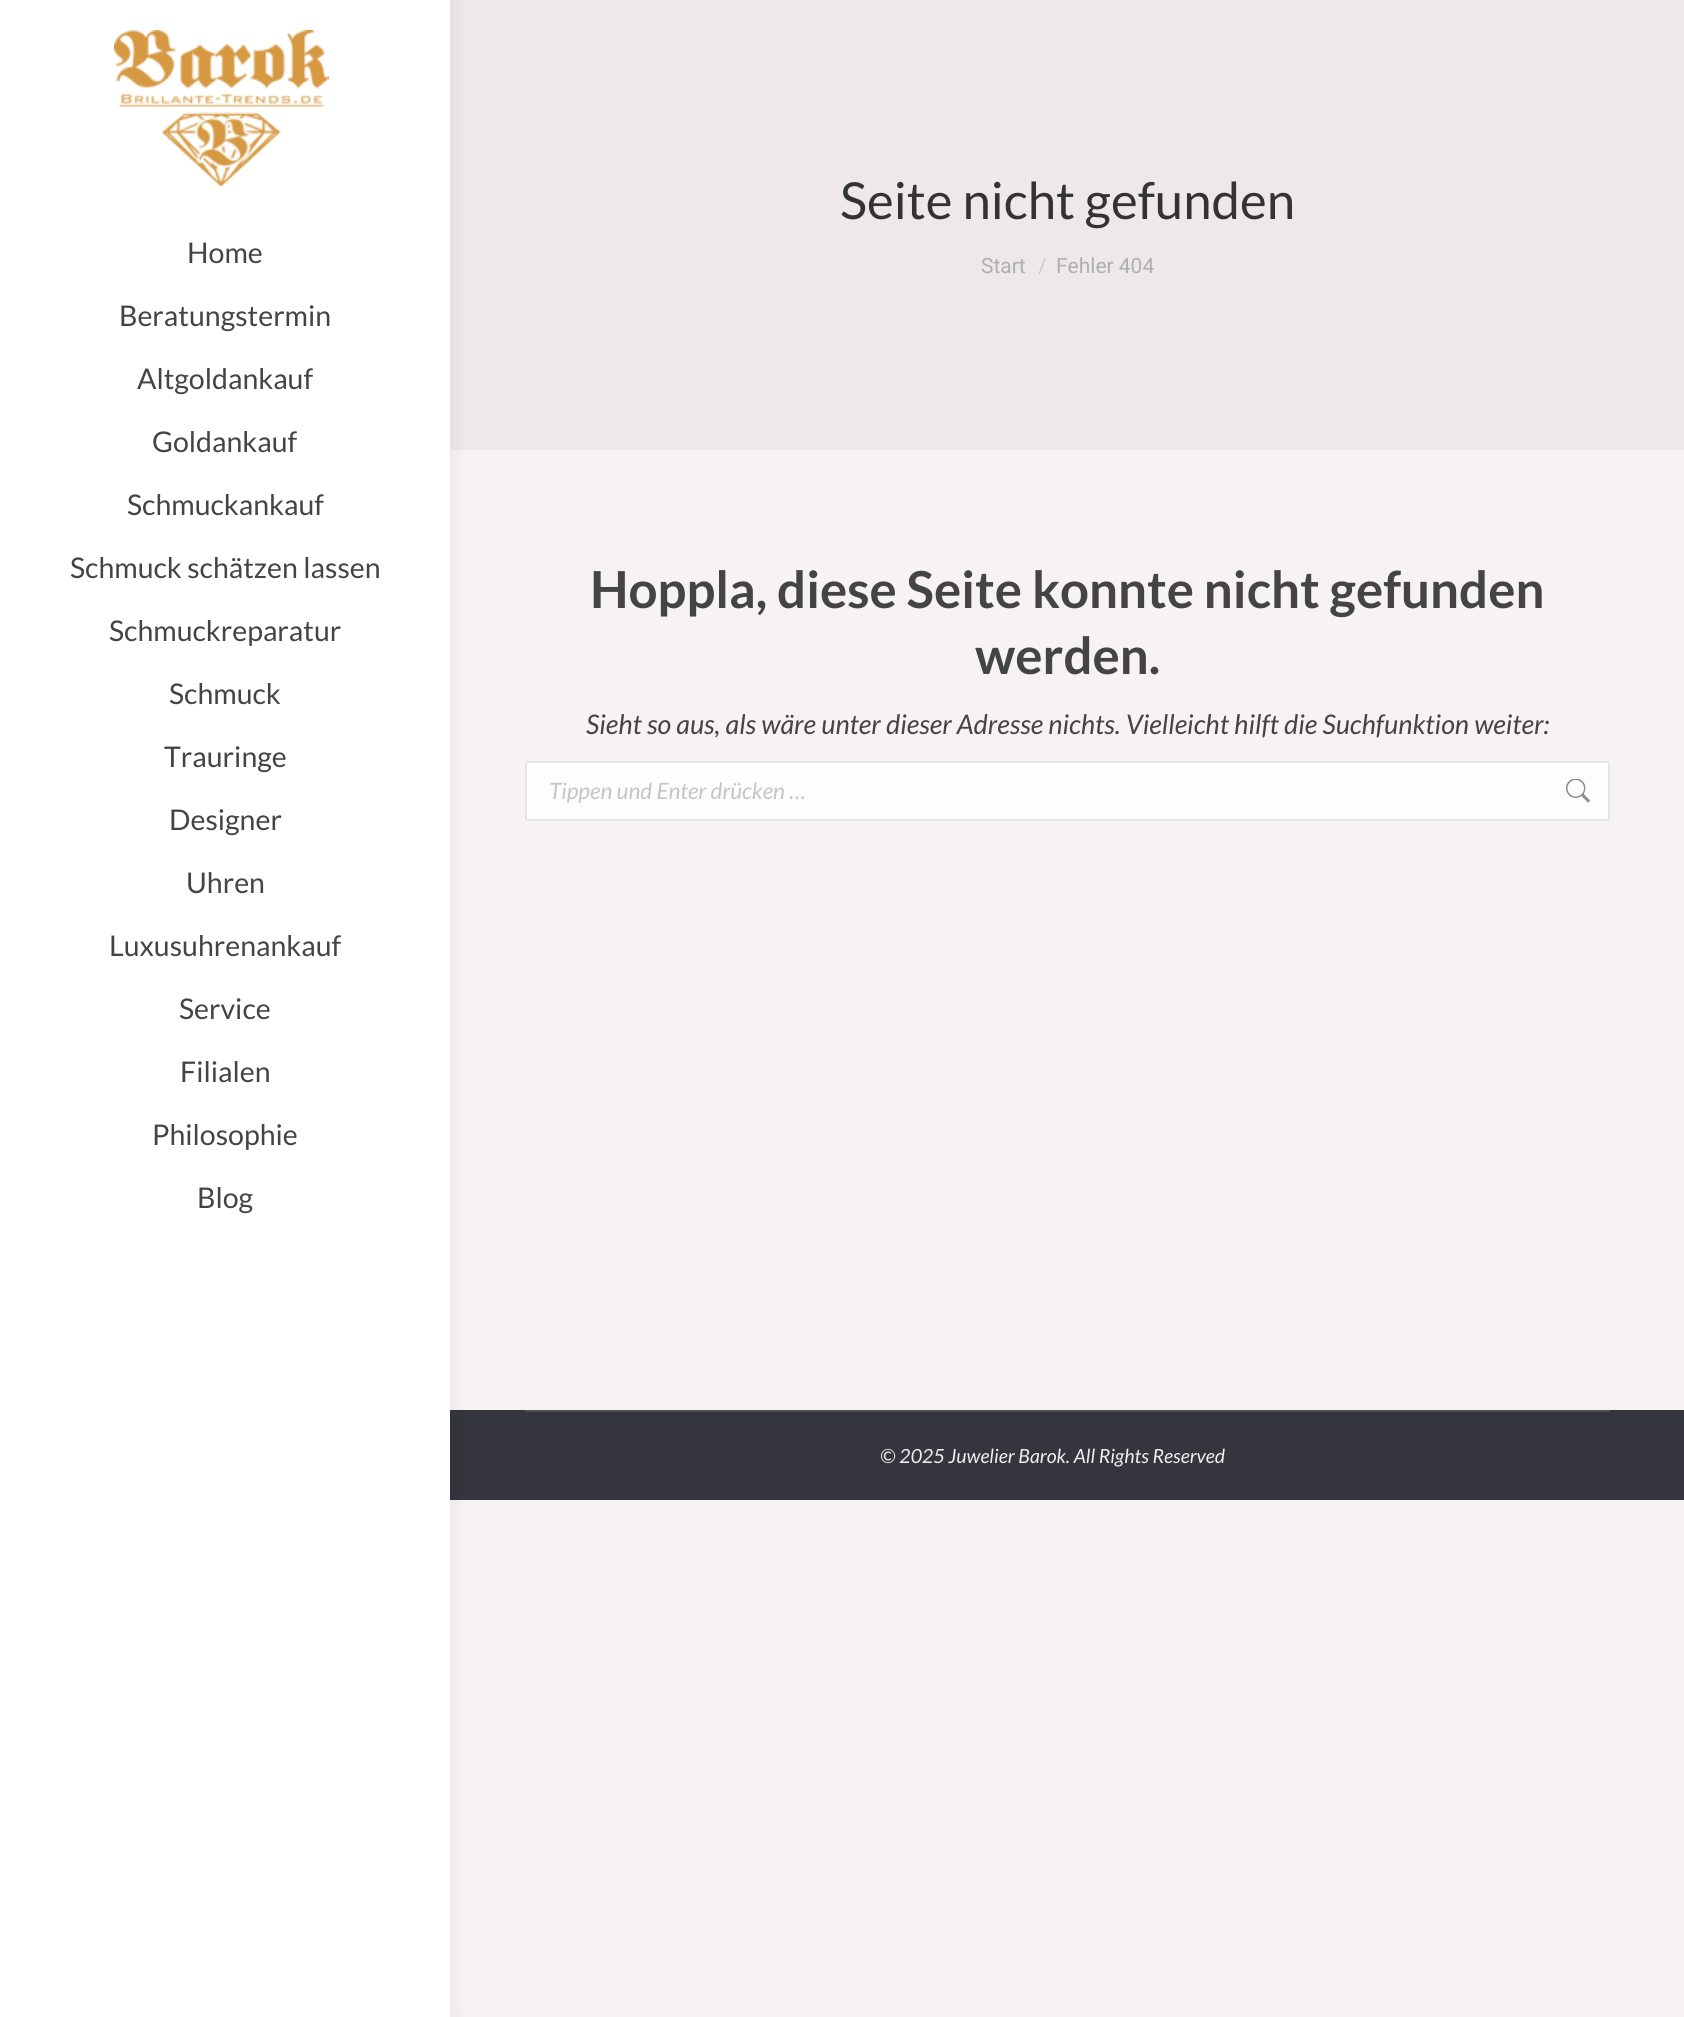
import math
import cairocffi as cairo

surface = cairo.ImageSurface(cairo.FORMAT_RGB24, 1684, 2017)
ctx = cairo.Context(surface)
options = cairo.FontOptions()
options.set_hint_metrics(cairo.HINT_METRICS_OFF)
options.set_hint_style(cairo.HINT_STYLE_NONE)
ctx.set_font_options(options)
ctx.set_miter_limit(4)


def rgb(r, g, b):
    ctx.set_source_rgb(r / 255, g / 255, b / 255)


def face(family, size, italic, bold):
    ctx.select_font_face(family, cairo.FONT_SLANT_ITALIC if italic else cairo.FONT_SLANT_NORMAL, cairo.FONT_WEIGHT_BOLD if bold else cairo.FONT_WEIGHT_NORMAL)
    ctx.set_font_size(size)


def label(x, y, s):
    ctx.move_to(x, y)
    ctx.show_text(s)


def rect(x, y, w, h):
    ctx.rectangle(x, y, w, h)
    ctx.fill()


def rrect(x, y, w, h, r):
    ctx.new_sub_path()
    for i, (u, v) in enumerate([(x + w - r, y + h - r), (x + r, y + h - r), (x + r, y + r), (x + w - r, y + r)]):
        ctx.arc(u, v, r, i * math.pi / 2, (i + 1) * math.pi / 2)
    ctx.close_path()


def soft_shadow(x, y, w, h, r, blur, alpha):
    ctx.push_group_with_content(cairo.CONTENT_ALPHA)
    ctx.set_operator(cairo.OPERATOR_SOURCE)
    for i in range(15, -16, -2):
        e = blur * i / 6
        if min(w, h) + 2 * e > 0:
            ctx.set_source_rgba(0, 0, 0, alpha * math.erfc((i - 1) / 8.5) / 2)
            rrect(x - e, y - e, w + 2 * e, h + 2 * e, max(0, min(r + e + blur * .6, min(w, h) / 2 + e)))
            ctx.fill()
    ctx.mask(ctx.pop_group())


def image(path, x, y, w, h):
    ctx.save()
    ctx.set_source_surface(cairo.ImageSurface.create_from_png(path), x, y)
    ctx.rectangle(x, y, w, h)
    ctx.fill()
    ctx.restore()


rgb(247, 243, 244)
ctx.paint()
rgb(238, 232, 232)
rect(450, 0, 1234, 450)
face('Lato', 51, 0, 0)
rgb(51, 51, 51)
label(840, 219, 'Seite nicht gefunden')
face('Roboto', 21, 0, 0)
rgb(173, 175, 179)
label(981, 273, 'Start')
rgb(206, 204, 206)
label(1038, 273, '/')
rgb(173, 175, 179)
label(1056, 273, 'Fehler 404')
rgb(52, 53, 61)
rect(450, 1410, 1234, 90)
rgb(0, 0, 0)
soft_shadow(-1, -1, 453, 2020, 0, 11, 0.07)
rgb(255, 255, 255)
rect(0, 0, 450, 2017)
image('image0.png', 114, 30, 215, 156)
face('Lato', 28.5, 0, 0)
rgb(68, 68, 68)
label(187, 263, 'Home')
label(119, 326, 'Beratungstermin')
label(137, 389, 'Altgoldankauf')
label(152, 452, 'Goldankauf')
label(127, 515, 'Schmuckankauf')
label(70, 578, 'Schmuck schätzen lassen')
label(109, 641, 'Schmuckreparatur')
label(169, 704, 'Schmuck')
label(164, 767, 'Trauringe')
label(169, 830, 'Designer')
label(186, 893, 'Uhren')
label(109, 956, 'Luxusuhrenankauf')
label(179, 1019, 'Service')
label(180, 1082, 'Filialen')
label(152, 1145, 'Philosophie')
label(197, 1208, 'Blog')
face('Lato', 51, 0, 1)
label(590, 608, 'Hoppla, diese Seite konnte nicht gefunden')
label(975, 674, 'werden.')
face('Lato', 27, 1, 0)
label(586, 734, 'Sieht so aus, als wäre unter dieser Adresse nichts. Vielleicht hilft die Suchfunktion weiter:')
rgb(253, 253, 253)
rrect(525, 761, 1085, 60, 3)
ctx.fill()
rrect(526, 762, 1083, 58, 2)
ctx.set_source_rgba(0.2, 0.2, 0.2, 0.11)
ctx.stroke()
face('Lato', 22.5, 1, 0)
rgb(196, 197, 201)
label(549, 799, 'Tippen und Enter drücken …')
image('image1.png', 1566, 779, 24, 24)
rgb(76, 77, 84)
rect(525, 1410, 1085, 2)
face('Lato', 19.5, 1, 0)
rgb(238, 238, 238)
label(880, 1463, '© 2025 Juwelier Barok. All Rights Reserved')
surface.write_to_png('render.png')
